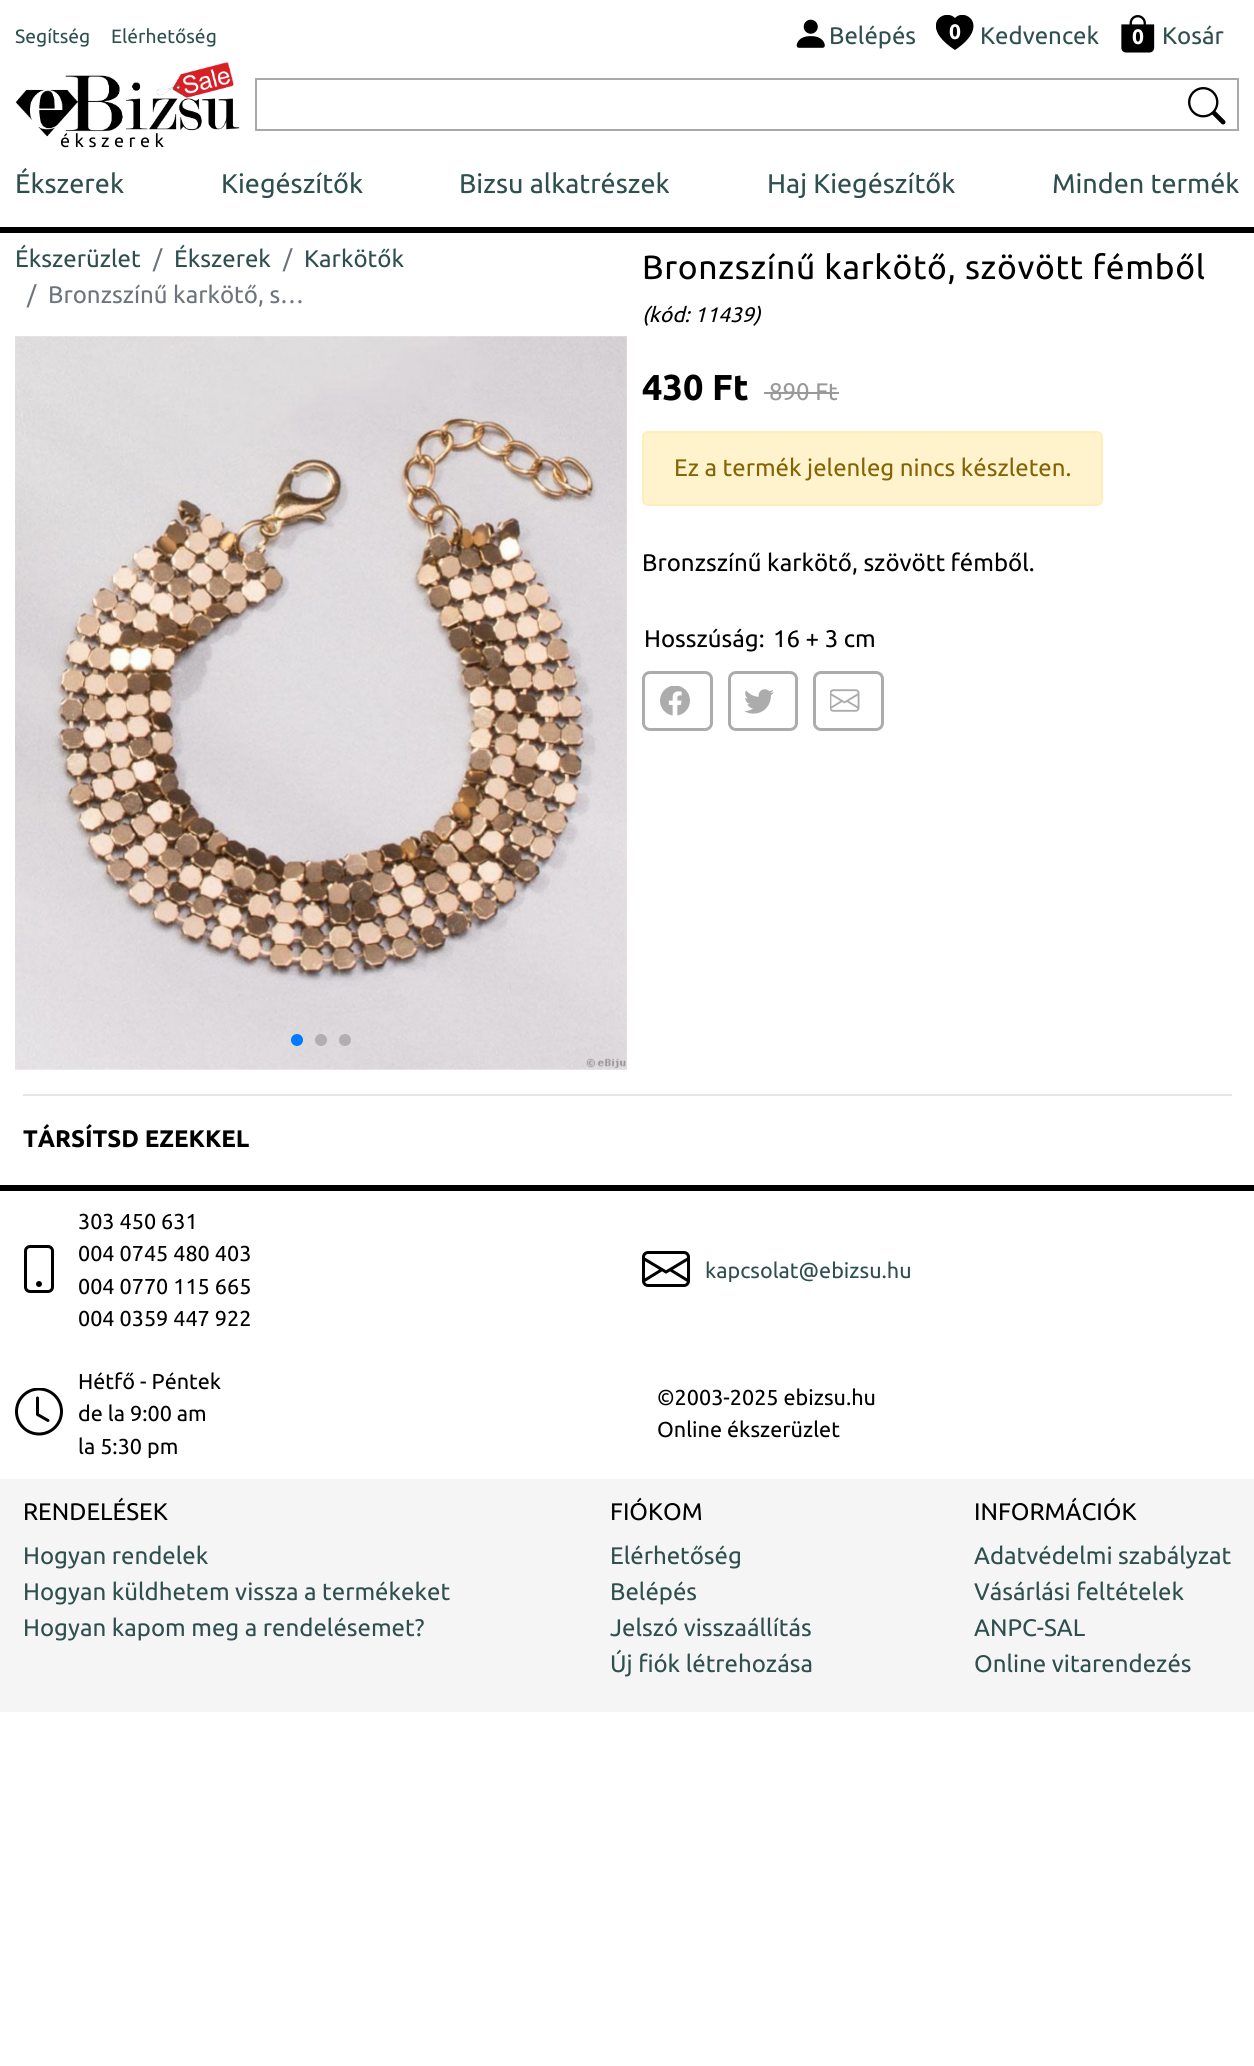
import math
import cairocffi as cairo

surface = cairo.ImageSurface(cairo.FORMAT_RGB24, 1254, 2066)
ctx = cairo.Context(surface)
options = cairo.FontOptions()
options.set_hint_metrics(cairo.HINT_METRICS_OFF)
options.set_hint_style(cairo.HINT_STYLE_NONE)
ctx.set_font_options(options)
ctx.set_miter_limit(4)


def rgb(r, g, b):
    ctx.set_source_rgb(r / 255, g / 255, b / 255)


def face(family, size, italic, bold):
    ctx.select_font_face(family, cairo.FONT_SLANT_ITALIC if italic else cairo.FONT_SLANT_NORMAL, cairo.FONT_WEIGHT_BOLD if bold else cairo.FONT_WEIGHT_NORMAL)
    ctx.set_font_size(size)


def label(x, y, s):
    ctx.move_to(x, y)
    ctx.show_text(s)


def tracked(x, y, s, letter, word):
    ctx.move_to(x, y)
    for ch in s:
        ctx.show_text(ch)
        ctx.rel_move_to(letter + word * (ch == ' '), 0)


def rect(x, y, w, h):
    ctx.rectangle(x, y, w, h)
    ctx.fill()


def rrect(x, y, w, h, r):
    ctx.new_sub_path()
    for i, (u, v) in enumerate([(x + w - r, y + h - r), (x + r, y + h - r), (x + r, y + r), (x + w - r, y + r)]):
        ctx.arc(u, v, r, i * math.pi / 2, (i + 1) * math.pi / 2)
    ctx.close_path()


def image(path, x, y, w, h):
    ctx.save()
    ctx.set_source_surface(cairo.ImageSurface.create_from_png(path), x, y)
    ctx.rectangle(x, y, w, h)
    ctx.fill()
    ctx.restore()


rgb(255, 255, 255)
ctx.paint()
rgb(0, 0, 0)
rect(0, 227, 1254, 6)
face('Ubuntu', 19.25, 0, 0)
rgb(47, 79, 79)
label(15, 43, 'Segítség')
label(111, 43, 'Elérhetőség')
image('image0.png', 796, 19, 29, 29)
face('Ubuntu', 24, 0, 0)
label(829, 44, 'Belépés')
ctx.save()
ctx.rectangle(936, 15, 38, 38)
ctx.clip()
rgb(0, 0, 0)
ctx.set_fill_rule(cairo.FILL_RULE_EVEN_ODD)
ctx.new_path()
ctx.move_to(955, 18)
ctx.curve_to(965, 7, 991, 26, 955, 50)
ctx.curve_to(918, 26, 944, 7, 955, 18)
ctx.close_path()
ctx.fill()
ctx.restore()
face('Ubuntu', 21, 0, 1)
rgb(255, 255, 255)
label(949, 39, '0')
face('Ubuntu', 24, 0, 0)
rgb(47, 79, 79)
label(980, 44, 'Kedvencek')
image('image1.png', 1121, 15, 34, 38)
face('Ubuntu', 21, 0, 1)
rgb(255, 255, 255)
label(1132, 44, '0')
face('Ubuntu', 24, 0, 0)
rgb(47, 79, 79)
label(1162, 44, 'Kosár')
ctx.rectangle(256, 79, 982, 51)
rgb(169, 169, 169)
ctx.stroke()
image('image2.png', 1188, 87, 38, 38)
image('image3.png', 15, 62, 225, 75)
face('Ubuntu', 18, 0, 0)
rgb(0, 0, 0)
tracked(60, 147, 'ékszerek', 4.5, 0)
face('Ubuntu', 27, 0, 0)
rgb(47, 79, 79)
label(15, 193, 'Ékszerek')
label(221, 193, 'Kiegészítők')
label(459, 193, 'Bizsu alkatrészek')
label(767, 193, 'Haj Kiegészítők')
label(1052, 193, 'Minden termék')
face('Ubuntu', 24, 0, 0)
label(15, 267, 'Ékszerüzlet')
rgb(108, 117, 125)
label(153, 267, '/')
rgb(47, 79, 79)
label(174, 267, 'Ékszerek')
rgb(108, 117, 125)
label(283, 267, '/')
rgb(47, 79, 79)
label(304, 267, 'Karkötők')
rgb(108, 117, 125)
label(27, 303, '/')
label(48, 303, 'Bronzszínű karkötő, s…')
image('image4.png', 15, 336, 612, 734)
rgb(0, 122, 255)
ctx.arc(297, 1040, 6, 0, 2 * math.pi)
ctx.fill()
ctx.set_source_rgba(0, 0, 0, 0.2)
ctx.arc(321, 1040, 6, 0, 2 * math.pi)
ctx.fill()
ctx.arc(345, 1040, 6, 0, 2 * math.pi)
ctx.fill()
face('Ubuntu', 33.6, 0, 0)
rgb(0, 0, 0)
tracked(642, 279, 'Bronzszínű karkötő, szövött fémből', 0.65, 0)
face('Ubuntu', 21, 1, 0)
label(642, 322, '(kód: 11439)')
face('Ubuntu', 36, 0, 1)
label(642, 400, '430 Ft')
face('Ubuntu', 24, 0, 0)
rgb(153, 153, 153)
label(769, 400, '890 Ft')
rect(764, 392, 75, 2)
rgb(255, 243, 205)
rrect(643, 432, 459, 73, 5)
ctx.fill_preserve()
rgb(255, 238, 186)
ctx.stroke()
rgb(133, 100, 4)
label(674, 476, 'Ez a termék jelenleg nincs készleten.')
rgb(0, 0, 0)
label(642, 571, 'Bronzszínű karkötő, szövött fémből.')
label(644, 647, 'Hosszúság:')
label(773, 647, '16 + 3 cm')
rrect(643.5, 672.5, 68, 57, 6.5)
rgb(172, 172, 172)
ctx.set_line_width(3)
ctx.stroke()
image('image5.png', 660, 686, 30, 30)
rrect(729.5, 672.5, 67, 57, 6.5)
ctx.stroke()
image('image6.png', 744, 689, 30, 25)
rrect(814.5, 672.5, 68, 57, 6.5)
ctx.stroke()
image('image7.png', 830, 689, 30, 23)
rgb(230, 230, 230)
rect(23, 1094, 1209, 2)
face('Ubuntu', 24, 0, 1)
rgb(0, 0, 0)
label(23, 1147, 'TÁRSÍTSD EZEKKEL')
rect(0, 1185, 1254, 6)
image('image8.png', 24, 1245, 30, 48)
face('Ubuntu', 21.6, 0, 0)
label(78, 1229, '303 450 631')
label(78, 1261, '004 0745 480 403')
label(78, 1294, '004 0770 115 665')
label(78, 1326, '004 0359 447 922')
image('image9.png', 642, 1251, 48, 36)
rgb(47, 79, 79)
label(705, 1278, 'kapcsolat@ebizsu.hu')
image('image10.png', 15, 1388, 48, 48)
rgb(0, 0, 0)
label(78, 1389, 'Hétfő - Péntek')
label(78, 1421, 'de la 9:00 am')
label(78, 1454, 'la 5:30 pm')
label(657, 1405, '©2003-2025 ebizsu.hu')
label(657, 1437, 'Online ékszerüzlet')
rgb(245, 245, 245)
rect(0, 1479, 1254, 233)
face('Ubuntu', 24, 0, 0)
rgb(0, 0, 0)
label(23, 1520, 'RENDELÉSEK')
rgb(47, 79, 79)
label(23, 1564, 'Hogyan rendelek')
label(23, 1600, 'Hogyan küldhetem vissza a termékeket')
label(23, 1636, 'Hogyan kapom meg a rendelésemet?')
rgb(0, 0, 0)
label(610, 1520, 'FIÓKOM')
rgb(47, 79, 79)
label(610, 1564, 'Elérhetőség')
label(610, 1600, 'Belépés')
label(610, 1636, 'Jelszó visszaállítás')
label(610, 1672, 'Új fiók létrehozása')
rgb(0, 0, 0)
label(974, 1520, 'INFORMÁCIÓK')
rgb(47, 79, 79)
label(974, 1564, 'Adatvédelmi szabályzat')
label(974, 1600, 'Vásárlási feltételek')
label(974, 1636, 'ANPC-SAL')
label(974, 1672, 'Online vitarendezés')
surface.write_to_png('render.png')
